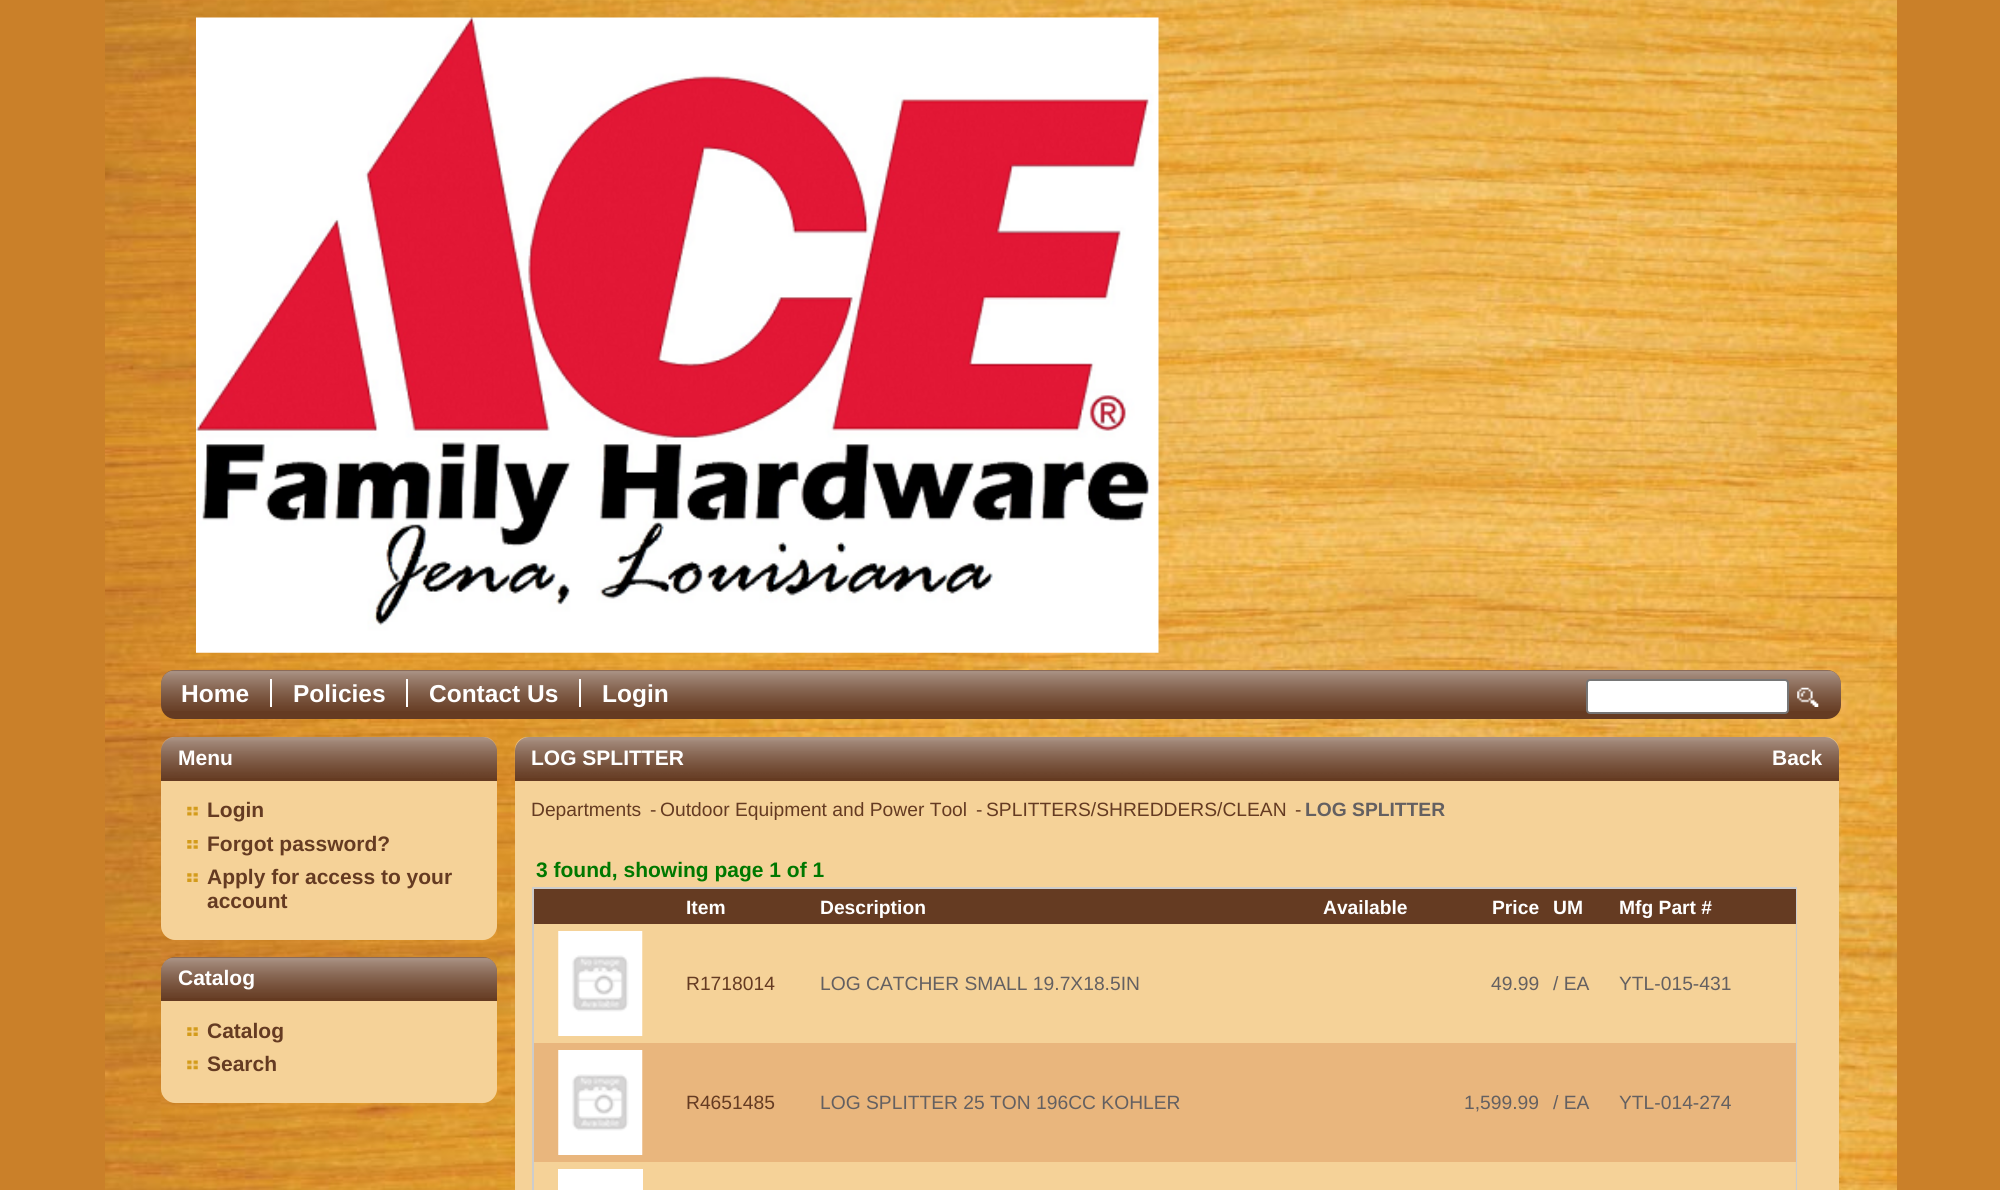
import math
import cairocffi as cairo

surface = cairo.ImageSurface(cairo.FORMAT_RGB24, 2000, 1190)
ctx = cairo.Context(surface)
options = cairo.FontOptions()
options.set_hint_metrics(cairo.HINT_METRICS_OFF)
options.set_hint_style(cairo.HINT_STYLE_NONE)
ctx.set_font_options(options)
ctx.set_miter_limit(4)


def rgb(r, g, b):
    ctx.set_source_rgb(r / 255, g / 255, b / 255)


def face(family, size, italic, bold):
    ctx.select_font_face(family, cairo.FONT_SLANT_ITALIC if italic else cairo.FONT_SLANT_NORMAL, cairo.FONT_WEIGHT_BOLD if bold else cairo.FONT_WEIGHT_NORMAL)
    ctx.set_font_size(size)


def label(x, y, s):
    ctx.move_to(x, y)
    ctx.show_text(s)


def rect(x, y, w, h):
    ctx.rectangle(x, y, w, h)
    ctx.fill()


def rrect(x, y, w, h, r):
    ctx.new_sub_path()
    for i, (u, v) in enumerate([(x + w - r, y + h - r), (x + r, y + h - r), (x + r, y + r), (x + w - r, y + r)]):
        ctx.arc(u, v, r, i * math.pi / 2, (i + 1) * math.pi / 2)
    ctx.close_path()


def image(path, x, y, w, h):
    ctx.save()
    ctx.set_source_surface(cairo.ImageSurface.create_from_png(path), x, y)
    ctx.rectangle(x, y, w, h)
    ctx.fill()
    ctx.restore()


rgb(202, 128, 41)
ctx.paint()
image('image0.png', 105, 0, 1792, 1190)
image('image1.png', 196, 17, 963, 636)
rgb(101, 59, 34)
rrect(161, 670, 1680, 49, 14)
ctx.fill()
image('image2.png', 161, 670, 1680, 41)
face('Liberation Sans', 24.5, 0, 1)
rgb(255, 255, 255)
label(181, 702, 'Home')
rect(270, 679, 2, 28)
label(293, 702, 'Policies')
rect(406, 679, 2, 28)
label(429, 702, 'Contact Us')
rect(579, 679, 2, 28)
label(602, 702, 'Login')
rrect(1587, 680, 201, 33, 3)
ctx.fill_preserve()
rgb(118, 118, 118)
ctx.stroke()
image('image3.png', 1797, 687, 22, 20)
rgb(101, 59, 34)
ctx.new_path()
ctx.move_to(175, 737)
ctx.line_to(483, 737)
ctx.curve_to(490.5, 737, 497, 743.5, 497, 751)
ctx.line_to(497, 781)
ctx.line_to(161, 781)
ctx.line_to(161, 751)
ctx.curve_to(161, 743.5, 167.5, 737, 175, 737)
ctx.close_path()
ctx.fill()
image('image4.png', 161, 736, 336, 42)
face('Liberation Sans', 21, 0, 1)
rgb(255, 255, 255)
label(178, 765, 'Menu')
rgb(245, 210, 152)
ctx.new_path()
ctx.move_to(161, 781)
ctx.line_to(497, 781)
ctx.line_to(497, 926)
ctx.curve_to(497, 933.5, 490.5, 940, 483, 940)
ctx.line_to(175, 940)
ctx.curve_to(167.5, 940, 161, 933.5, 161, 926)
ctx.close_path()
ctx.fill()
image('image5.png', 187, 806, 11, 10)
rgb(101, 59, 34)
label(207, 817, 'Login')
image('image6.png', 187, 840, 11, 9)
label(207, 851, 'Forgot password?')
image('image7.png', 187, 873, 11, 9)
label(207, 884, 'Apply for access to your')
label(207, 908, 'account')
ctx.new_path()
ctx.move_to(175, 957)
ctx.line_to(483, 957)
ctx.curve_to(490.5, 957, 497, 963.5, 497, 971)
ctx.line_to(497, 1001)
ctx.line_to(161, 1001)
ctx.line_to(161, 971)
ctx.curve_to(161, 963.5, 167.5, 957, 175, 957)
ctx.close_path()
ctx.fill()
image('image8.png', 161, 957, 336, 41)
rgb(255, 255, 255)
label(178, 985, 'Catalog')
rgb(245, 210, 152)
ctx.new_path()
ctx.move_to(161, 1001)
ctx.line_to(497, 1001)
ctx.line_to(497, 1089)
ctx.curve_to(497, 1096.5, 490.5, 1103, 483, 1103)
ctx.line_to(175, 1103)
ctx.curve_to(167.5, 1103, 161, 1096.5, 161, 1089)
ctx.close_path()
ctx.fill()
image('image7.png', 187, 1027, 11, 9)
rgb(101, 59, 34)
label(207, 1038, 'Catalog')
image('image9.png', 187, 1060, 11, 10)
label(207, 1071, 'Search')
ctx.new_path()
ctx.move_to(529, 737)
ctx.line_to(1825, 737)
ctx.curve_to(1832.5, 737, 1839, 743.5, 1839, 751)
ctx.line_to(1839, 781)
ctx.line_to(515, 781)
ctx.line_to(515, 751)
ctx.curve_to(515, 743.5, 521.5, 737, 529, 737)
ctx.close_path()
ctx.fill()
image('image10.png', 514, 736, 1325, 42)
rgb(255, 255, 255)
label(531, 765, 'LOG SPLITTER')
label(1772, 765, 'Back')
rgb(245, 210, 152)
rect(515, 781, 1324, 409)
face('Liberation Sans', 19.25, 0, 0)
rgb(101, 59, 34)
label(531, 816, 'Departments')
label(650, 816, '-')
label(660, 816, 'Outdoor Equipment and Power Tool')
label(976, 816, '-')
label(986, 816, 'SPLITTERS/SHREDDERS/CLEAN')
label(1295, 816, '-')
face('Liberation Sans', 19.25, 0, 1)
rgb(100, 96, 97)
label(1305, 816, 'LOG SPLITTER')
face('Liberation Sans', 21, 0, 1)
rgb(0, 120, 0)
label(536, 877, '3 found, showing page 1 of 1')
ctx.rectangle(533, 888, 1263, 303)
rgb(204, 204, 204)
ctx.stroke()
rgb(101, 59, 34)
rect(534, 889, 1262, 35)
face('Liberation Sans', 19.25, 0, 1)
rgb(255, 255, 255)
label(686, 914, 'Item')
label(820, 914, 'Description')
label(1323, 914, 'Available')
label(1492, 914, 'Price')
label(1553, 914, 'UM')
label(1619, 914, 'Mfg Part #')
rgb(243, 208, 152)
rect(1795, 924, 1, 119)
image('image11.png', 558, 931, 85, 105)
face('Liberation Sans', 19.25, 0, 0)
rgb(101, 59, 34)
label(686, 990, 'R1718014')
rgb(100, 96, 97)
label(820, 990, 'LOG CATCHER SMALL 19.7X18.5IN')
label(1491, 990, '49.99')
label(1553, 990, '/ EA')
label(1619, 990, 'YTL-015-431')
rgb(233, 182, 125)
rect(534, 1043, 1262, 119)
image('image12.png', 558, 1050, 85, 105)
rgb(101, 59, 34)
label(686, 1109, 'R4651485')
rgb(100, 96, 97)
label(820, 1109, 'LOG SPLITTER 25 TON 196CC KOHLER')
label(1464, 1109, '1,599.99')
label(1553, 1109, '/ EA')
label(1619, 1109, 'YTL-014-274')
rgb(243, 208, 152)
rect(1795, 1162, 1, 28)
rgb(255, 255, 255)
rect(558, 1169, 85, 21)
surface.write_to_png('render.png')
